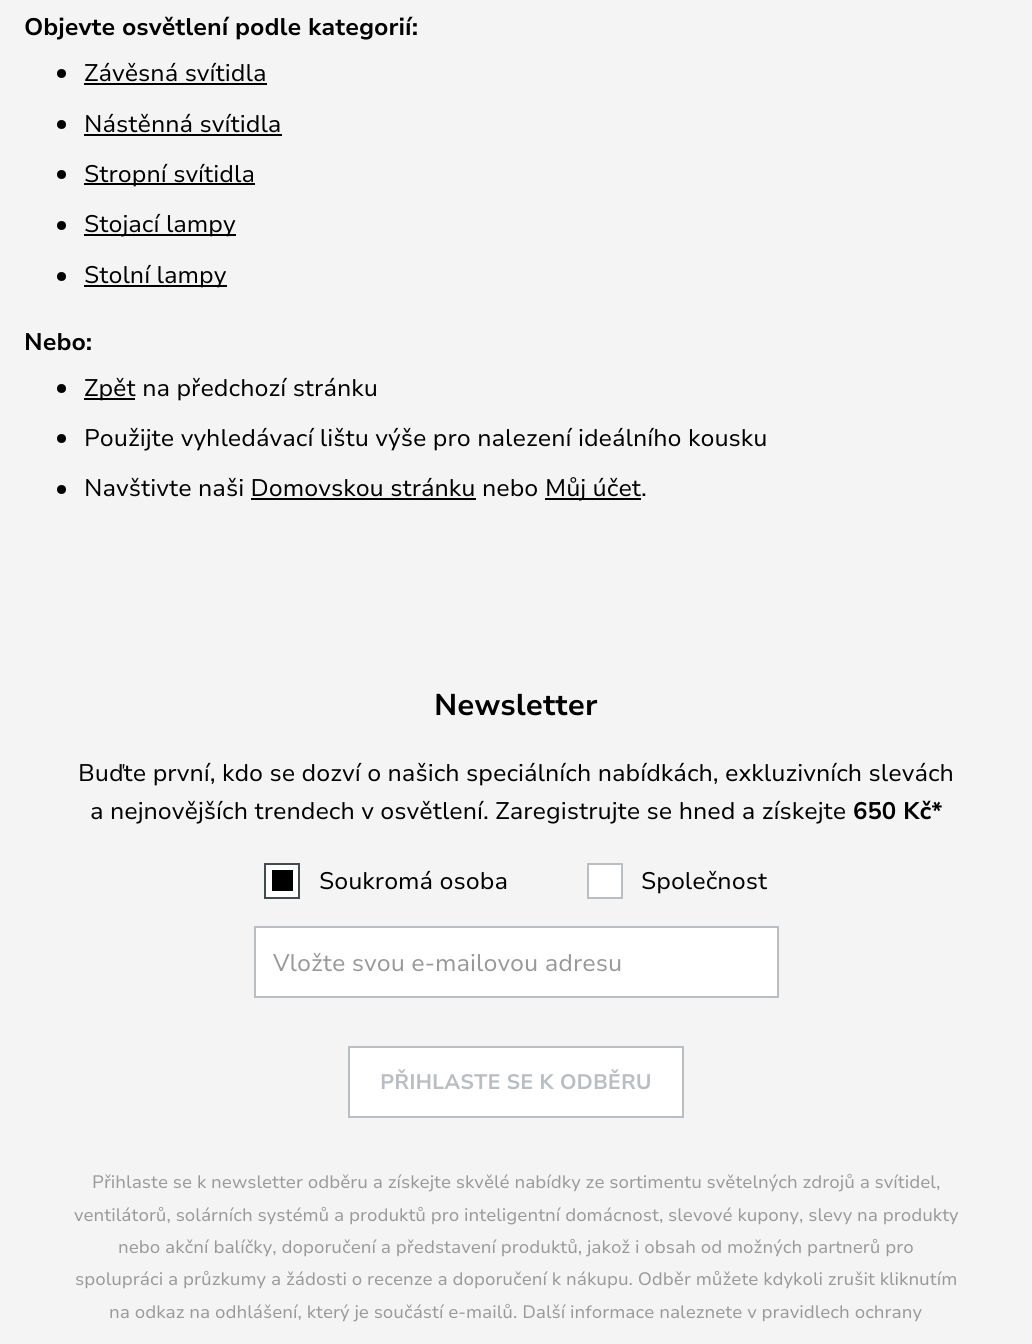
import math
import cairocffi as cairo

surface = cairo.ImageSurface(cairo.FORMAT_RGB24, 1032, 1344)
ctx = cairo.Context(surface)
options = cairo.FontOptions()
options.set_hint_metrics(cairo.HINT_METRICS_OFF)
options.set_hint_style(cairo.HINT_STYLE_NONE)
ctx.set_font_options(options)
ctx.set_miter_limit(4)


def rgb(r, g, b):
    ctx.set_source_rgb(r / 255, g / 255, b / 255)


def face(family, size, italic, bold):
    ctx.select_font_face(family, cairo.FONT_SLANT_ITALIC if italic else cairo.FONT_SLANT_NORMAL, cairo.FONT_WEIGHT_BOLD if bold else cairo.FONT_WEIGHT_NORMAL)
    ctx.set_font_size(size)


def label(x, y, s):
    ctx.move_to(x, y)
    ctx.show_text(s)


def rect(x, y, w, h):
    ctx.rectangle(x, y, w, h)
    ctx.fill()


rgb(244, 244, 244)
ctx.paint()
face('Nunito Sans', 24, 0, 1)
rgb(0, 0, 0)
label(24, 35, 'Objevte osvětlení podle kategorií:')
ctx.new_path()
ctx.arc(61.5, 73.5, 4.5, 0, 2 * math.pi)
ctx.fill()
face('Nunito Sans', 24, 0, 0)
label(84, 81, 'Závěsná svítidla')
rect(84, 83, 183, 2)
ctx.new_path()
ctx.arc(61.5, 124.5, 4.5, 0, 2 * math.pi)
ctx.fill()
label(84, 132, 'Nástěnná svítidla')
rect(84, 134, 198, 2)
ctx.new_path()
ctx.arc(61.5, 174.5, 4.5, 0, 2 * math.pi)
ctx.fill()
rect(84, 183, 171, 2)
label(84, 182, 'Stropní svítidla')
ctx.new_path()
ctx.arc(61.5, 225.5, 4.5, 0, 2 * math.pi)
ctx.fill()
rect(84, 234, 152, 2)
label(84, 232, 'Stojací lampy')
ctx.new_path()
ctx.arc(61.5, 276.5, 4.5, 0, 2 * math.pi)
ctx.fill()
rect(84, 285, 143, 2)
label(84, 283, 'Stolní lampy')
face('Nunito Sans', 24, 0, 1)
label(24, 350, 'Nebo:')
ctx.new_path()
ctx.arc(61.5, 388.5, 4.5, 0, 2 * math.pi)
ctx.fill()
rect(84, 398, 51, 2)
face('Nunito Sans', 24, 0, 0)
label(84, 396, 'Zpět na předchozí stránku')
ctx.new_path()
ctx.arc(61.5, 438.5, 4.5, 0, 2 * math.pi)
ctx.fill()
label(84, 446, 'Použijte vyhledávací lištu výše pro nalezení ideálního kousku')
ctx.new_path()
ctx.arc(61.5, 489.5, 4.5, 0, 2 * math.pi)
ctx.fill()
label(84, 496, 'Navštivte naši Domovskou stránku nebo')
rect(545, 498, 96, 2)
label(545, 496, 'Můj účet.')
rect(251, 498, 225, 2)
face('Nunito Sans', 30, 0, 1)
label(434, 715, 'Newsletter')
face('Nunito Sans', 24, 0, 0)
label(78, 781, 'Buďte první, kdo se dozví o našich speciálních nabídkách, exkluzivních slevách')
label(90, 819, 'a nejnovějších trendech v osvětlení. Zaregistrujte se hned a získejte')
face('Nunito Sans', 24, 0, 1)
label(853, 819, '650 Kč*')
rgb(255, 255, 255)
ctx.rectangle(265, 864, 34, 34)
ctx.fill_preserve()
rgb(67, 75, 79)
ctx.stroke()
rgb(0, 0, 0)
rect(272, 870, 21, 21)
face('Nunito Sans', 24, 0, 0)
label(319, 889, 'Soukromá osoba')
rgb(255, 255, 255)
ctx.rectangle(588, 864, 34, 34)
ctx.fill_preserve()
rgb(185, 190, 194)
ctx.stroke()
rgb(0, 0, 0)
label(641, 889, 'Společnost')
rgb(255, 255, 255)
ctx.rectangle(255, 927, 523, 70)
ctx.fill_preserve()
rgb(185, 190, 194)
ctx.stroke()
rgb(153, 153, 153)
label(273, 971, 'Vložte svou e-mailovou adresu')
rgb(255, 255, 255)
ctx.rectangle(349, 1047, 334, 70)
ctx.fill_preserve()
rgb(185, 190, 194)
ctx.stroke()
face('Nunito Sans', 21, 0, 1)
label(380, 1089, 'PŘIHLASTE SE K ODBĚRU')
face('Nunito Sans', 18, 0, 0)
rgb(153, 153, 153)
label(92, 1188, 'Přihlaste se k newsletter odběru a získejte skvělé nabídky ze sortimentu světelných zdrojů a svítidel,')
label(74, 1221, 'ventilátorů, solárních systémů a produktů pro inteligentní domácnost, slevové kupony, slevy na produkty')
label(118, 1253, 'nebo akční balíčky, doporučení a představení produktů, jakož i obsah od možných partnerů pro')
label(75, 1285, 'spolupráci a průzkumy a žádosti o recenze a doporučení k nákupu. Odběr můžete kdykoli zrušit kliknutím')
label(109, 1318, 'na odkaz na odhlášení, který je součástí e-mailů. Další informace naleznete v pravidlech ochrany')
surface.write_to_png('render.png')
